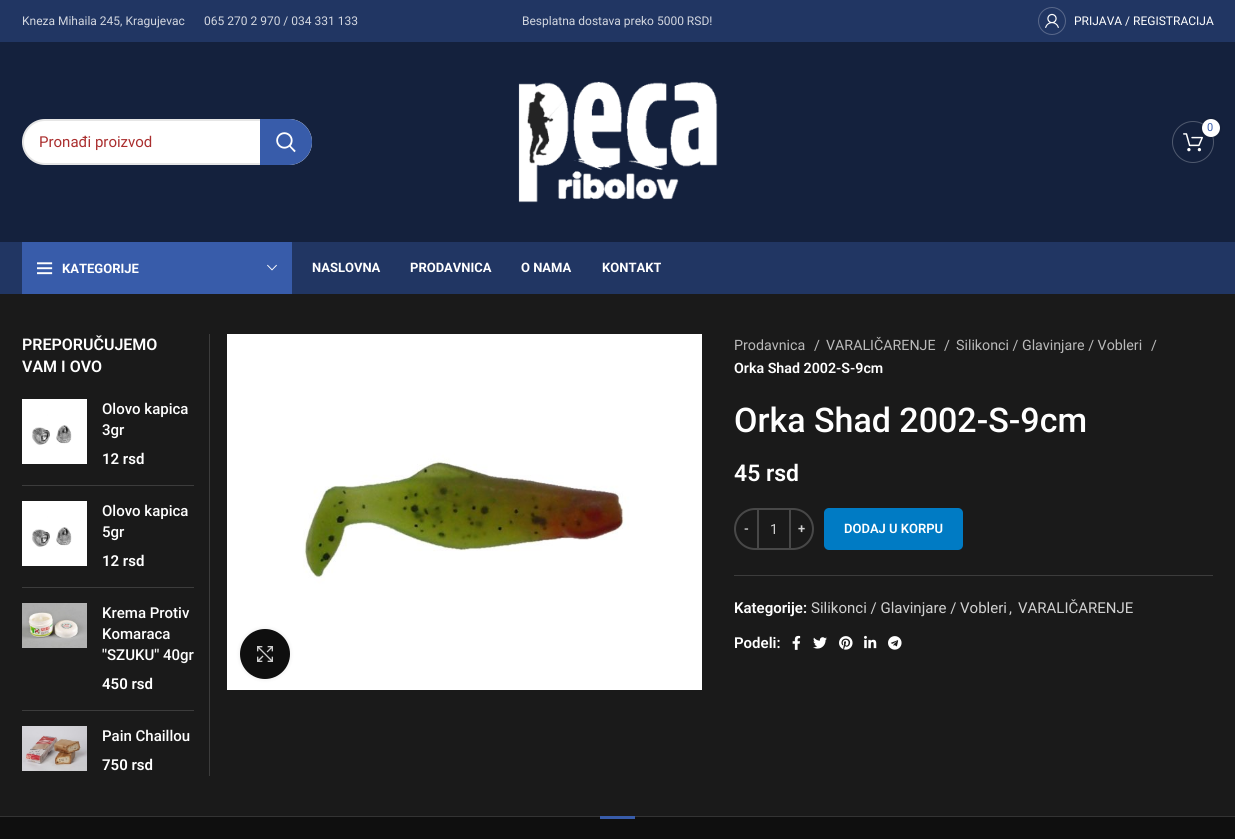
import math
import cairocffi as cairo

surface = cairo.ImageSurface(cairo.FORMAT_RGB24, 1235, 839)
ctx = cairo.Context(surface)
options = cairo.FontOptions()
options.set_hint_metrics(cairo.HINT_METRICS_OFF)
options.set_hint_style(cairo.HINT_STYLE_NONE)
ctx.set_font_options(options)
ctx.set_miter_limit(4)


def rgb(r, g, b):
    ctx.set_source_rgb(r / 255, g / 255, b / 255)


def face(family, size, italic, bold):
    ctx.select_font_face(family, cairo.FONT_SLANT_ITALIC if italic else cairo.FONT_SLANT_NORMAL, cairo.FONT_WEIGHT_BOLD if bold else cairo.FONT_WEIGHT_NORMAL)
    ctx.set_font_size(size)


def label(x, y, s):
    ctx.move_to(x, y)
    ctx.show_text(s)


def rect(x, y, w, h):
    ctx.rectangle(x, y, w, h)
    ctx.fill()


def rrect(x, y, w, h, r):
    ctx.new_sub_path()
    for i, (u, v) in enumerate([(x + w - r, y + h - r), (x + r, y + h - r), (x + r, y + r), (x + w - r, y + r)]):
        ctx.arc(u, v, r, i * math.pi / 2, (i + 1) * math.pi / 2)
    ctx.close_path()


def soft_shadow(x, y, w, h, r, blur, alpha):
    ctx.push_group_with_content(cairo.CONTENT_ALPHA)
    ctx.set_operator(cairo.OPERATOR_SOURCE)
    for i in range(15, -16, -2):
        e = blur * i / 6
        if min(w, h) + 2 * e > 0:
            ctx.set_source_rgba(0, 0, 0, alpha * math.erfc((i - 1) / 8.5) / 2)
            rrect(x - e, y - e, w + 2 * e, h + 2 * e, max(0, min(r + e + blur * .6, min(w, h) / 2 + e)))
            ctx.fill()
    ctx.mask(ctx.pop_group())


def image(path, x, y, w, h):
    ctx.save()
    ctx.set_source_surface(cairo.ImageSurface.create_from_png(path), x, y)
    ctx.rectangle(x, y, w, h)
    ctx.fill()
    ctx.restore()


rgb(26, 26, 26)
ctx.paint()
rgb(33, 54, 99)
rect(0, 0, 1235, 42)
face('Roboto', 12, 0, 0)
rgb(211, 215, 224)
label(22, 25, 'Kneza Mihaila 245, Kragujevac')
label(204, 25, '065 270 2 970 / 034 331 133')
label(522, 25, 'Besplatna dostava preko 5000 RSD!')
ctx.new_path()
ctx.arc(1052, 21, 13.5, 0, 2 * math.pi)
rgb(89, 104, 138)
ctx.set_line_width(1)
ctx.stroke()
image('image0.png', 1045, 13, 14, 15)
rgb(255, 255, 255)
label(1074, 25, 'PRIJAVA / REGISTRACIJA')
rgb(20, 33, 61)
rect(0, 42, 1235, 200)
image('image1.png', 518, 81, 200, 122)
ctx.arc(1193, 142, 20.5, 0, 2 * math.pi)
rgb(79, 89, 110)
ctx.stroke()
image('image2.png', 1183, 133, 20, 19)
rgb(0, 0, 0)
soft_shadow(1202, 119, 18, 18, 9, 2, 0.17)
rgb(255, 255, 255)
ctx.arc(1211, 128, 9, 0, 2 * math.pi)
ctx.fill()
face('Roboto', 11, 0, 0)
rgb(56, 92, 170)
label(1207, 131, '0')
rgb(255, 255, 255)
rrect(22, 119, 290, 46, 23)
ctx.fill()
rrect(23, 120, 288, 44, 22)
ctx.set_source_rgba(0, 0, 0, 0.1)
ctx.set_line_width(2)
ctx.stroke()
face('Roboto', 15, 0, 0)
rgb(170, 46, 46)
label(39, 147, 'Pronađi proizvod')
rgb(56, 92, 170)
ctx.new_path()
ctx.move_to(260, 119)
ctx.line_to(289, 119)
ctx.curve_to(301.5, 119, 312, 129.5, 312, 142)
ctx.curve_to(312, 154.5, 301.5, 165, 289, 165)
ctx.line_to(260, 165)
ctx.close_path()
ctx.fill()
image('image3.png', 276, 132, 20, 21)
rgb(33, 54, 99)
rect(0, 242, 1235, 52)
rgb(56, 92, 170)
rect(22, 242, 270, 52)
image('image4.png', 37, 262, 16, 13)
face('Roboto', 13, 0, 1)
rgb(255, 255, 255)
label(62, 273, 'KATEGORIJE')
image('image5.png', 267, 264, 10, 7)
label(312, 272, 'NASLOVNA')
label(410, 272, 'PRODAVNICA')
label(521, 272, 'O NAMA')
label(602, 272, 'KONTAKT')
rgb(60, 60, 60)
rect(209, 334, 1, 442)
face('Roboto SemiBold', 16, 0, 0)
rgb(255, 255, 255)
label(22, 350, 'PREPORUČUJEMO')
label(22, 372, 'VAM I OVO')
rgb(60, 60, 60)
rect(22, 485, 172, 1)
image('image6.png', 22, 399, 65, 65)
face('Roboto Medium', 15, 0, 0)
rgb(255, 255, 255)
label(102, 414, 'Olovo kapica')
label(102, 435, '3gr')
face('Roboto SemiBold', 15, 0, 0)
label(102, 464, '12 rsd')
rgb(60, 60, 60)
rect(22, 587, 172, 1)
image('image6.png', 22, 501, 65, 65)
face('Roboto Medium', 15, 0, 0)
rgb(255, 255, 255)
label(102, 516, 'Olovo kapica')
label(102, 537, '5gr')
face('Roboto SemiBold', 15, 0, 0)
label(102, 566, '12 rsd')
rgb(60, 60, 60)
rect(22, 710, 172, 1)
image('image7.png', 22, 603, 65, 45)
face('Roboto Medium', 15, 0, 0)
rgb(255, 255, 255)
label(102, 618, 'Krema Protiv')
label(102, 639, 'Komaraca')
label(102, 660, '\'\'SZUKU\'\' 40gr')
face('Roboto SemiBold', 15, 0, 0)
label(102, 689, '450 rsd')
image('image8.png', 22, 726, 65, 45)
face('Roboto Medium', 15, 0, 0)
label(102, 741, 'Pain Chaillou')
face('Roboto SemiBold', 15, 0, 0)
label(102, 770, '750 rsd')
image('image9.png', 227, 334, 475, 356)
rgb(0, 0, 0)
soft_shadow(240, 629, 50, 50, 25, 2.5, 0.08)
rgb(15, 15, 15)
ctx.arc(265, 654, 25, 0, 2 * math.pi)
ctx.fill()
image('image10.png', 257, 646, 16, 16)
face('Roboto', 14.25, 0, 0)
rgb(186, 186, 186)
label(734, 350, 'Prodavnica')
label(814, 350, '/')
label(826, 350, 'VARALIČARENJE')
label(944, 350, '/')
label(956, 350, 'Silikonci / Glavinjare / Vobleri')
label(1151, 350, '/')
face('Roboto SemiBold', 14.25, 0, 0)
rgb(255, 255, 255)
label(734, 373, 'Orka Shad 2002-S-9cm')
face('Roboto Medium', 34, 0, 0)
label(734, 432, 'Orka Shad 2002-S-9cm')
face('Roboto SemiBold', 23, 0, 0)
label(734, 481, '45 rsd')
ctx.new_path()
ctx.move_to(755, 509)
ctx.line_to(758, 509)
ctx.line_to(758, 549)
ctx.line_to(755, 549)
ctx.curve_to(744, 549, 735, 540, 735, 529)
ctx.curve_to(735, 518, 744, 509, 755, 509)
ctx.close_path()
rgb(72, 72, 72)
ctx.stroke()
face('Roboto SemiBold', 13, 0, 0)
rgb(209, 209, 209)
label(744, 533, '-')
rgb(72, 72, 72)
rect(759, 508, 30, 2)
rect(759, 548, 30, 2)
face('Roboto', 14, 0, 0)
rgb(209, 209, 209)
label(770, 534, '1')
ctx.new_path()
ctx.move_to(790, 509)
ctx.line_to(793, 509)
ctx.curve_to(804, 509, 813, 518, 813, 529)
ctx.curve_to(813, 540, 804, 549, 793, 549)
ctx.line_to(790, 549)
ctx.close_path()
rgb(72, 72, 72)
ctx.stroke()
face('Roboto SemiBold', 13, 0, 0)
rgb(209, 209, 209)
label(798, 533, '+')
rgb(0, 123, 196)
rrect(824, 508, 139, 42, 5)
ctx.fill()
rgb(255, 255, 255)
label(844, 533, 'DODAJ U KORPU')
rgb(60, 60, 60)
rect(734, 575, 479, 1)
face('Roboto SemiBold', 15, 0, 0)
rgb(255, 255, 255)
label(734, 613, 'Kategorije:')
face('Roboto', 15, 0, 0)
rgb(209, 209, 209)
label(811, 613, 'Silikonci / Glavinjare / Vobleri')
label(1009, 613, ',')
label(1018, 613, 'VARALIČARENJE')
face('Roboto SemiBold', 15, 0, 0)
rgb(255, 255, 255)
label(734, 648, 'Podeli:')
image('image11.png', 792, 635, 9, 15)
image('image12.png', 813, 637, 14, 12)
image('image13.png', 839, 636, 14, 14)
image('image14.png', 864, 635, 13, 14)
image('image15.png', 888, 636, 14, 14)
rgb(15, 15, 15)
rect(0, 817, 1235, 22)
rgb(51, 51, 51)
rect(0, 816, 1235, 1)
rgb(56, 92, 170)
rect(600, 816, 35, 3)
surface.write_to_png('render.png')
